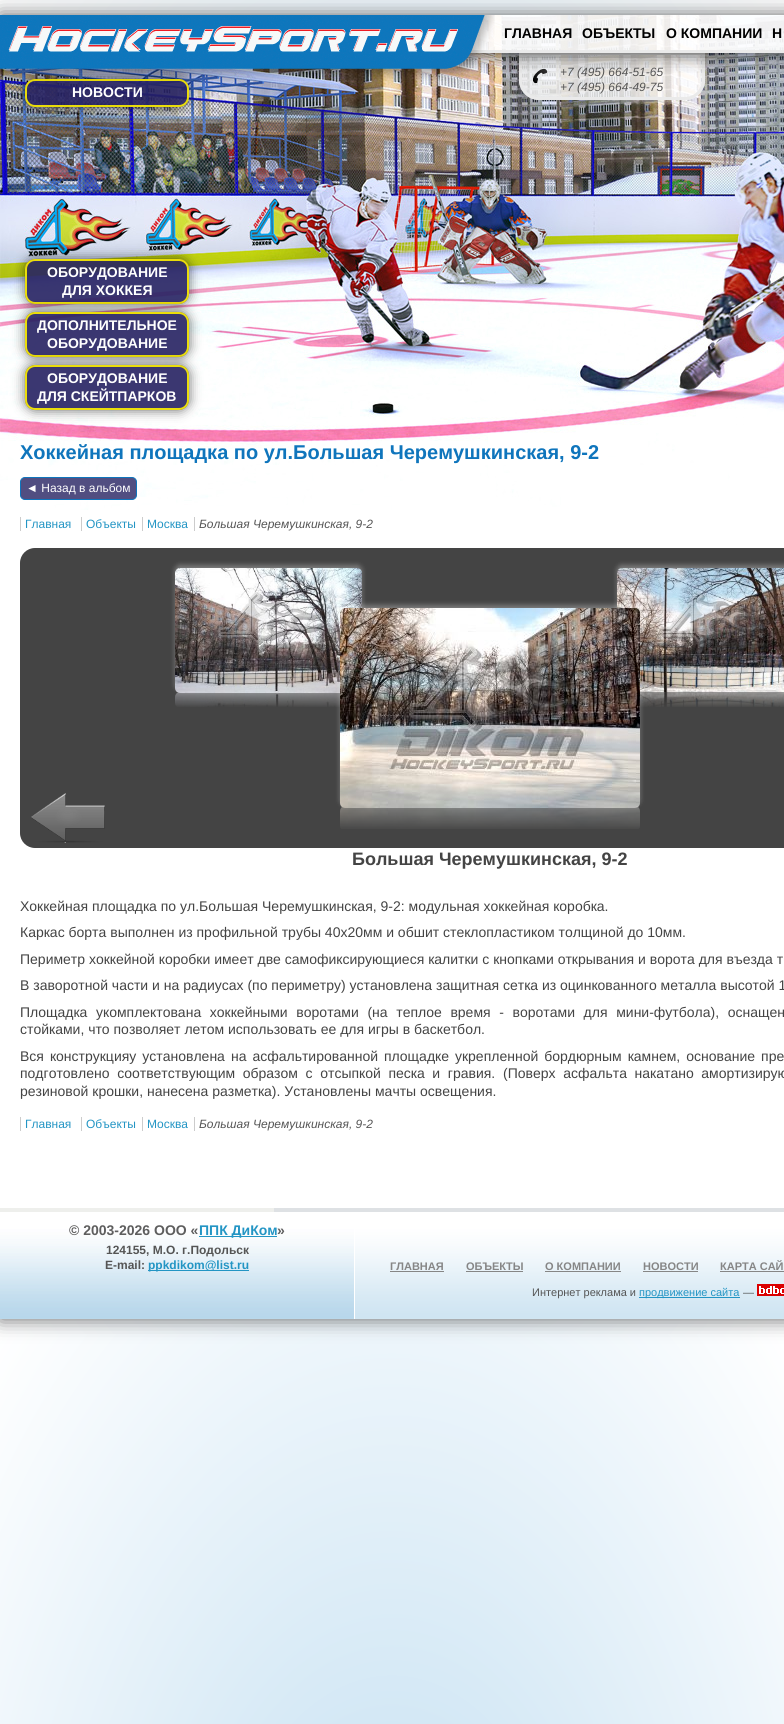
import math
import cairocffi as cairo

surface = cairo.ImageSurface(cairo.FORMAT_RGB24, 784, 1724)
ctx = cairo.Context(surface)
options = cairo.FontOptions()
options.set_hint_metrics(cairo.HINT_METRICS_OFF)
options.set_hint_style(cairo.HINT_STYLE_NONE)
ctx.set_font_options(options)
ctx.set_miter_limit(4)


def rgb(r, g, b):
    ctx.set_source_rgb(r / 255, g / 255, b / 255)


def face(family, size, italic, bold):
    ctx.select_font_face(family, cairo.FONT_SLANT_ITALIC if italic else cairo.FONT_SLANT_NORMAL, cairo.FONT_WEIGHT_BOLD if bold else cairo.FONT_WEIGHT_NORMAL)
    ctx.set_font_size(size)


def label(x, y, s):
    ctx.move_to(x, y)
    ctx.show_text(s)


def tracked(x, y, s, letter, word):
    ctx.move_to(x, y)
    for ch in s:
        ctx.show_text(ch)
        ctx.rel_move_to(letter + word * (ch == ' '), 0)


def rect(x, y, w, h):
    ctx.rectangle(x, y, w, h)
    ctx.fill()


def rrect(x, y, w, h, r):
    ctx.new_sub_path()
    for i, (u, v) in enumerate([(x + w - r, y + h - r), (x + r, y + h - r), (x + r, y + r), (x + w - r, y + r)]):
        ctx.arc(u, v, r, i * math.pi / 2, (i + 1) * math.pi / 2)
    ctx.close_path()


def soft_shadow(x, y, w, h, r, blur, alpha):
    ctx.push_group_with_content(cairo.CONTENT_ALPHA)
    ctx.set_operator(cairo.OPERATOR_SOURCE)
    for i in range(15, -16, -2):
        e = blur * i / 6
        if min(w, h) + 2 * e > 0:
            ctx.set_source_rgba(0, 0, 0, alpha * math.erfc((i - 1) / 8.5) / 2)
            rrect(x - e, y - e, w + 2 * e, h + 2 * e, max(0, min(r + e + blur * .6, min(w, h) / 2 + e)))
            ctx.fill()
    ctx.mask(ctx.pop_group())


def image(path, x, y, w, h):
    ctx.save()
    ctx.set_source_surface(cairo.ImageSurface.create_from_png(path), x, y)
    ctx.rectangle(x, y, w, h)
    ctx.fill()
    ctx.restore()


rgb(255, 255, 255)
ctx.paint()
gradient = cairo.RadialGradient(0, 0, 0, 0, 0, 1)
gradient.set_matrix(cairo.Matrix(1 / 554, 0, 0, 1 / 943, -1 * 392 / 554, -1 * 667 / 943))
gradient.add_color_stop_rgba(0, 0.757, 0.871, 0.945, 1)
gradient.add_color_stop_rgba(1, 1, 1, 1, 1)
ctx.set_source(gradient)
rect(0, 0, 784, 1334)
gradient = cairo.RadialGradient(0, 0, 0, 0, 0, 1)
gradient.set_matrix(cairo.Matrix(1 / 554, 0, 0, 1 / 943, -1 * 392 / 554, -1 * 2001 / 943))
gradient.add_color_stop_rgba(0, 0.757, 0.871, 0.945, 1)
gradient.add_color_stop_rgba(1, 1, 1, 1, 1)
ctx.set_source(gradient)
rect(0, 1334, 784, 390)
rgb(102, 102, 102)
soft_shadow(0, 15, 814, 1304, 0, 10, 1)
rgb(255, 255, 255)
rect(0, 510, 784, 698)
image('image0.png', 0, 15, 784, 495)
ctx.set_source_rgba(1, 1, 1, 0.8)
ctx.new_path()
ctx.move_to(519, 52)
ctx.line_to(705, 52)
ctx.line_to(705, 80)
ctx.curve_to(705, 91, 696, 100, 685, 100)
ctx.line_to(539, 100)
ctx.curve_to(528, 100, 519, 91, 519, 80)
ctx.close_path()
ctx.fill()
image('image2.png', 533, 68, 15, 16)
ctx.new_path()
ctx.move_to(520.5, 53.5)
ctx.line_to(703.5, 53.5)
ctx.line_to(703.5, 80)
ctx.curve_to(703.5, 90, 695, 98.5, 685, 98.5)
ctx.line_to(539, 98.5)
ctx.curve_to(529, 98.5, 520.5, 90, 520.5, 80)
ctx.close_path()
rgb(234, 234, 234)
ctx.set_line_width(3)
ctx.stroke()
ctx.save()
ctx.set_fill_rule(cairo.FILL_RULE_EVEN_ODD)
ctx.new_path()
ctx.move_to(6, 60)
ctx.line_to(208, 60)
ctx.line_to(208, 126)
ctx.line_to(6, 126)
ctx.close_path()
ctx.move_to(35, 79)
ctx.line_to(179, 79)
ctx.curve_to(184.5, 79, 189, 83.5, 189, 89)
ctx.line_to(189, 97)
ctx.curve_to(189, 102.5, 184.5, 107, 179, 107)
ctx.line_to(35, 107)
ctx.curve_to(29.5, 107, 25, 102.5, 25, 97)
ctx.line_to(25, 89)
ctx.curve_to(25, 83.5, 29.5, 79, 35, 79)
ctx.close_path()
ctx.clip()
rgb(0, 0, 0)
soft_shadow(25, 79, 164, 28, 10, 6, 0.6)
ctx.restore()
ctx.set_source_rgba(0.149, 0.133, 0.384, 0.9)
rrect(25, 79, 164, 28, 10)
ctx.fill()
rrect(26, 80, 162, 26, 9)
ctx.set_source_rgba(0.992, 0.941, 0, 0.9)
ctx.set_line_width(2)
ctx.stroke()
ctx.save()
ctx.rectangle(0, 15, 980, 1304)
ctx.clip()
ctx.rectangle(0, 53, 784, 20)
ctx.clip()
rgb(0, 0, 0)
soft_shadow(0, 15, 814, 38, 0, 10, 0.8)
ctx.restore()
ctx.set_source_rgba(1, 1, 1, 0.9)
rect(472, 15, 312, 35)
rgb(234, 234, 234)
rect(470, 50, 314, 3)
image('image1.png', 0, 15, 495, 66)
face('Liberation Sans', 14, 0, 1)
rgb(0, 0, 0)
label(504, 38, 'ГЛАВНАЯ')
label(582, 38, 'ОБЪЕКТЫ')
label(666, 38, 'О КОМПАНИИ')
label(772, 38, 'Н')
face('Liberation Sans', 12, 1, 0)
rgb(85, 85, 85)
label(560, 76, '+7 (495) 664-51-65')
label(560, 91, '+7 (495) 664-49-75')
face('Liberation Sans', 14, 0, 1)
rgb(255, 255, 255)
label(72, 97, 'НОВОСТИ')
ctx.save()
ctx.set_fill_rule(cairo.FILL_RULE_EVEN_ODD)
ctx.new_path()
ctx.move_to(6, 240)
ctx.line_to(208, 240)
ctx.line_to(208, 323)
ctx.line_to(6, 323)
ctx.close_path()
ctx.move_to(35, 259)
ctx.line_to(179, 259)
ctx.curve_to(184.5, 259, 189, 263.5, 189, 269)
ctx.line_to(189, 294)
ctx.curve_to(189, 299.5, 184.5, 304, 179, 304)
ctx.line_to(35, 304)
ctx.curve_to(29.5, 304, 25, 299.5, 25, 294)
ctx.line_to(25, 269)
ctx.curve_to(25, 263.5, 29.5, 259, 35, 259)
ctx.close_path()
ctx.clip()
rgb(0, 0, 0)
soft_shadow(25, 259, 164, 45, 10, 6, 0.6)
ctx.restore()
ctx.set_source_rgba(0.149, 0.133, 0.384, 0.9)
rrect(25, 259, 164, 45, 10)
ctx.fill()
rrect(26, 260, 162, 43, 9)
ctx.set_source_rgba(0.992, 0.941, 0, 0.9)
ctx.stroke()
rgb(255, 255, 255)
label(47, 277, 'ОБОРУДОВАНИЕ')
label(62, 295, 'ДЛЯ ХОККЕЯ')
ctx.save()
ctx.set_fill_rule(cairo.FILL_RULE_EVEN_ODD)
ctx.new_path()
ctx.move_to(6, 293)
ctx.line_to(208, 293)
ctx.line_to(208, 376)
ctx.line_to(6, 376)
ctx.close_path()
ctx.move_to(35, 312)
ctx.line_to(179, 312)
ctx.curve_to(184.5, 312, 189, 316.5, 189, 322)
ctx.line_to(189, 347)
ctx.curve_to(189, 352.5, 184.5, 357, 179, 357)
ctx.line_to(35, 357)
ctx.curve_to(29.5, 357, 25, 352.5, 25, 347)
ctx.line_to(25, 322)
ctx.curve_to(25, 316.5, 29.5, 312, 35, 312)
ctx.close_path()
ctx.clip()
rgb(0, 0, 0)
soft_shadow(25, 312, 164, 45, 10, 6, 0.6)
ctx.restore()
ctx.set_source_rgba(0.149, 0.133, 0.384, 0.9)
rrect(25, 312, 164, 45, 10)
ctx.fill()
rrect(26, 313, 162, 43, 9)
ctx.set_source_rgba(0.992, 0.941, 0, 0.9)
ctx.stroke()
rgb(255, 255, 255)
label(37, 330, 'ДОПОЛНИТЕЛЬНОЕ')
label(47, 348, 'ОБОРУДОВАНИЕ')
ctx.save()
ctx.set_fill_rule(cairo.FILL_RULE_EVEN_ODD)
ctx.new_path()
ctx.move_to(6, 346)
ctx.line_to(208, 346)
ctx.line_to(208, 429)
ctx.line_to(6, 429)
ctx.close_path()
ctx.move_to(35, 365)
ctx.line_to(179, 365)
ctx.curve_to(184.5, 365, 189, 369.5, 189, 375)
ctx.line_to(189, 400)
ctx.curve_to(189, 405.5, 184.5, 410, 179, 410)
ctx.line_to(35, 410)
ctx.curve_to(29.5, 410, 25, 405.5, 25, 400)
ctx.line_to(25, 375)
ctx.curve_to(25, 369.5, 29.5, 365, 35, 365)
ctx.close_path()
ctx.clip()
rgb(0, 0, 0)
soft_shadow(25, 365, 164, 45, 10, 6, 0.6)
ctx.restore()
ctx.set_source_rgba(0.149, 0.133, 0.384, 0.9)
rrect(25, 365, 164, 45, 10)
ctx.fill()
rrect(26, 366, 162, 43, 9)
ctx.set_source_rgba(0.992, 0.941, 0, 0.9)
ctx.stroke()
rgb(255, 255, 255)
label(47, 383, 'ОБОРУДОВАНИЕ')
label(37, 401, 'ДЛЯ СКЕЙТПАРКОВ')
face('Liberation Sans', 20, 0, 1)
rgb(15, 117, 188)
label(20, 459, 'Хоккейная площадка по ул.Большая Черемушкинская, 9-2')
ctx.set_source_rgba(0.149, 0.133, 0.384, 0.8)
rrect(20.5, 477.5, 116, 22, 4.5)
ctx.fill_preserve()
rgb(15, 117, 188)
ctx.set_line_width(1)
ctx.stroke()
face('Liberation Sans', 12, 0, 0)
rgb(255, 255, 255)
label(26, 492, '◄ Назад в альбом')
rgb(35, 149, 196)
label(25, 528, 'Главная')
rgb(204, 204, 204)
rect(20, 517, 1, 14)
rgb(35, 149, 196)
label(86, 528, 'Объекты')
rgb(204, 204, 204)
rect(81, 517, 1, 14)
rgb(35, 149, 196)
label(147, 528, 'Москва')
rgb(204, 204, 204)
rect(142, 517, 1, 14)
face('Liberation Sans', 12, 1, 0)
rgb(85, 85, 85)
label(199, 528, 'Большая Черемушкинская, 9-2')
rgb(204, 204, 204)
rect(194, 517, 1, 14)
rgb(68, 68, 68)
rrect(20, 548, 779, 300, 15)
ctx.fill()
image('image3.png', 31, 793, 74, 50)
image('image5.png', 175, 692, 165, 15)
rgb(255, 255, 255)
soft_shadow(175, 565, 187, 125, 5, 2.5, 0.3)
image('image4.png', 175, 568, 187, 125)
image('image7.png', 340, 807, 300, 22)
image('image9.png', 640, 692, 144, 15)
soft_shadow(617, 565, 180, 124, 5, 2.5, 0.3)
image('image8.png', 617, 568, 167, 124)
soft_shadow(340, 605, 300, 200, 5, 2.5, 0.3)
image('image6.png', 340, 608, 300, 200)
face('Liberation Sans', 18, 0, 1)
rgb(68, 68, 68)
label(352, 865, 'Большая Черемушкинская, 9-2')
face('Liberation Sans', 14, 0, 0)
label(20, 911, 'Хоккейная площадка по ул.Большая Черемушкинская, 9-2: модульная хоккейная коробка.')
label(20, 937, 'Каркас борта выполнен из профильной трубы 40х20мм и обшит стеклопластиком толщиной до 10мм.')
label(20, 964, 'Периметр хоккейной коробки имеет две самофиксирующиеся калитки с кнопками открывания и ворота для въезда т')
label(20, 990, 'В заворотной части и на радиусах (по периметру) установлена защитная сетка из оцинкованного металла высотой 1')
tracked(20, 1017, 'Площадка укомплектована хоккейными воротами (на теплое время - воротами для мини-футбола), оснащен', 0, 4.75)
label(20, 1034, 'стойками, что позволяет летом использовать ее для игры в баскетбол.')
tracked(20, 1061, 'Вся конструкцияу установлена на асфальтированной площадке укрепленной бордюрным камнем, основание пре', 0, 2.1)
tracked(20, 1078, 'подготовлено соответствующим образом с отсыпкой песка и гравия.', 0, 3.75)
tracked(503, 1078, '(Поверх асфальта накатано амортизирую', 0, 3.75)
label(20, 1096, 'резиновой крошки, нанесена разметка). Установлены мачты освещения.')
face('Liberation Sans', 12, 0, 0)
rgb(35, 149, 196)
label(25, 1128, 'Главная')
rgb(204, 204, 204)
rect(20, 1117, 1, 14)
rgb(35, 149, 196)
label(86, 1128, 'Объекты')
rgb(204, 204, 204)
rect(81, 1117, 1, 14)
rgb(35, 149, 196)
label(147, 1128, 'Москва')
rgb(204, 204, 204)
rect(142, 1117, 1, 14)
face('Liberation Sans', 12, 1, 0)
rgb(85, 85, 85)
label(199, 1128, 'Большая Черемушкинская, 9-2')
rgb(204, 204, 204)
rect(194, 1117, 1, 14)
rgb(222, 225, 228)
rect(274, 1208, 510, 4)
rgb(238, 239, 236)
rect(0, 1208, 274, 4)
image('image10.png', 0, 1212, 354, 107)
rgb(255, 255, 255)
rect(354, 1212, 1, 107)
face('Liberation Sans', 14, 0, 1)
rgb(94, 94, 94)
label(69, 1235, '© 2003-2026 ООО «')
rgb(35, 149, 196)
rect(199, 1236, 78, 1)
label(199, 1235, 'ППК ДиКом')
rgb(94, 94, 94)
label(277, 1235, '»')
face('Liberation Sans', 12, 0, 1)
rgb(85, 85, 85)
label(106, 1254, '124155, М.О. г.Подольск')
label(105, 1269, 'E-mail:')
rgb(35, 149, 196)
rect(148, 1270, 101, 1)
label(148, 1269, 'ppkdikom@list.ru')
image('image11.png', 355, 1212, 429, 107)
face('Liberation Sans', 11, 0, 1)
rgb(134, 134, 134)
label(390, 1270, 'ГЛАВНАЯ')
rect(390, 1271, 54, 1)
label(466, 1270, 'ОБЪЕКТЫ')
rect(466, 1271, 57, 1)
label(545, 1270, 'О КОМПАНИИ')
rect(545, 1271, 76, 1)
label(643, 1270, 'НОВОСТИ')
rect(643, 1271, 55, 1)
label(720, 1270, 'КАРТА САЙ')
rect(720, 1271, 64, 1)
face('Liberation Sans', 11, 0, 0)
rgb(85, 85, 85)
label(532, 1296, 'Интернет реклама и')
rgb(35, 149, 196)
rect(639, 1297, 101, 1)
label(639, 1296, 'продвижение сайта')
rgb(85, 85, 85)
label(743, 1296, '—')
image('image12.png', 757, 1284, 27, 12)
surface.write_to_png('render.png')
